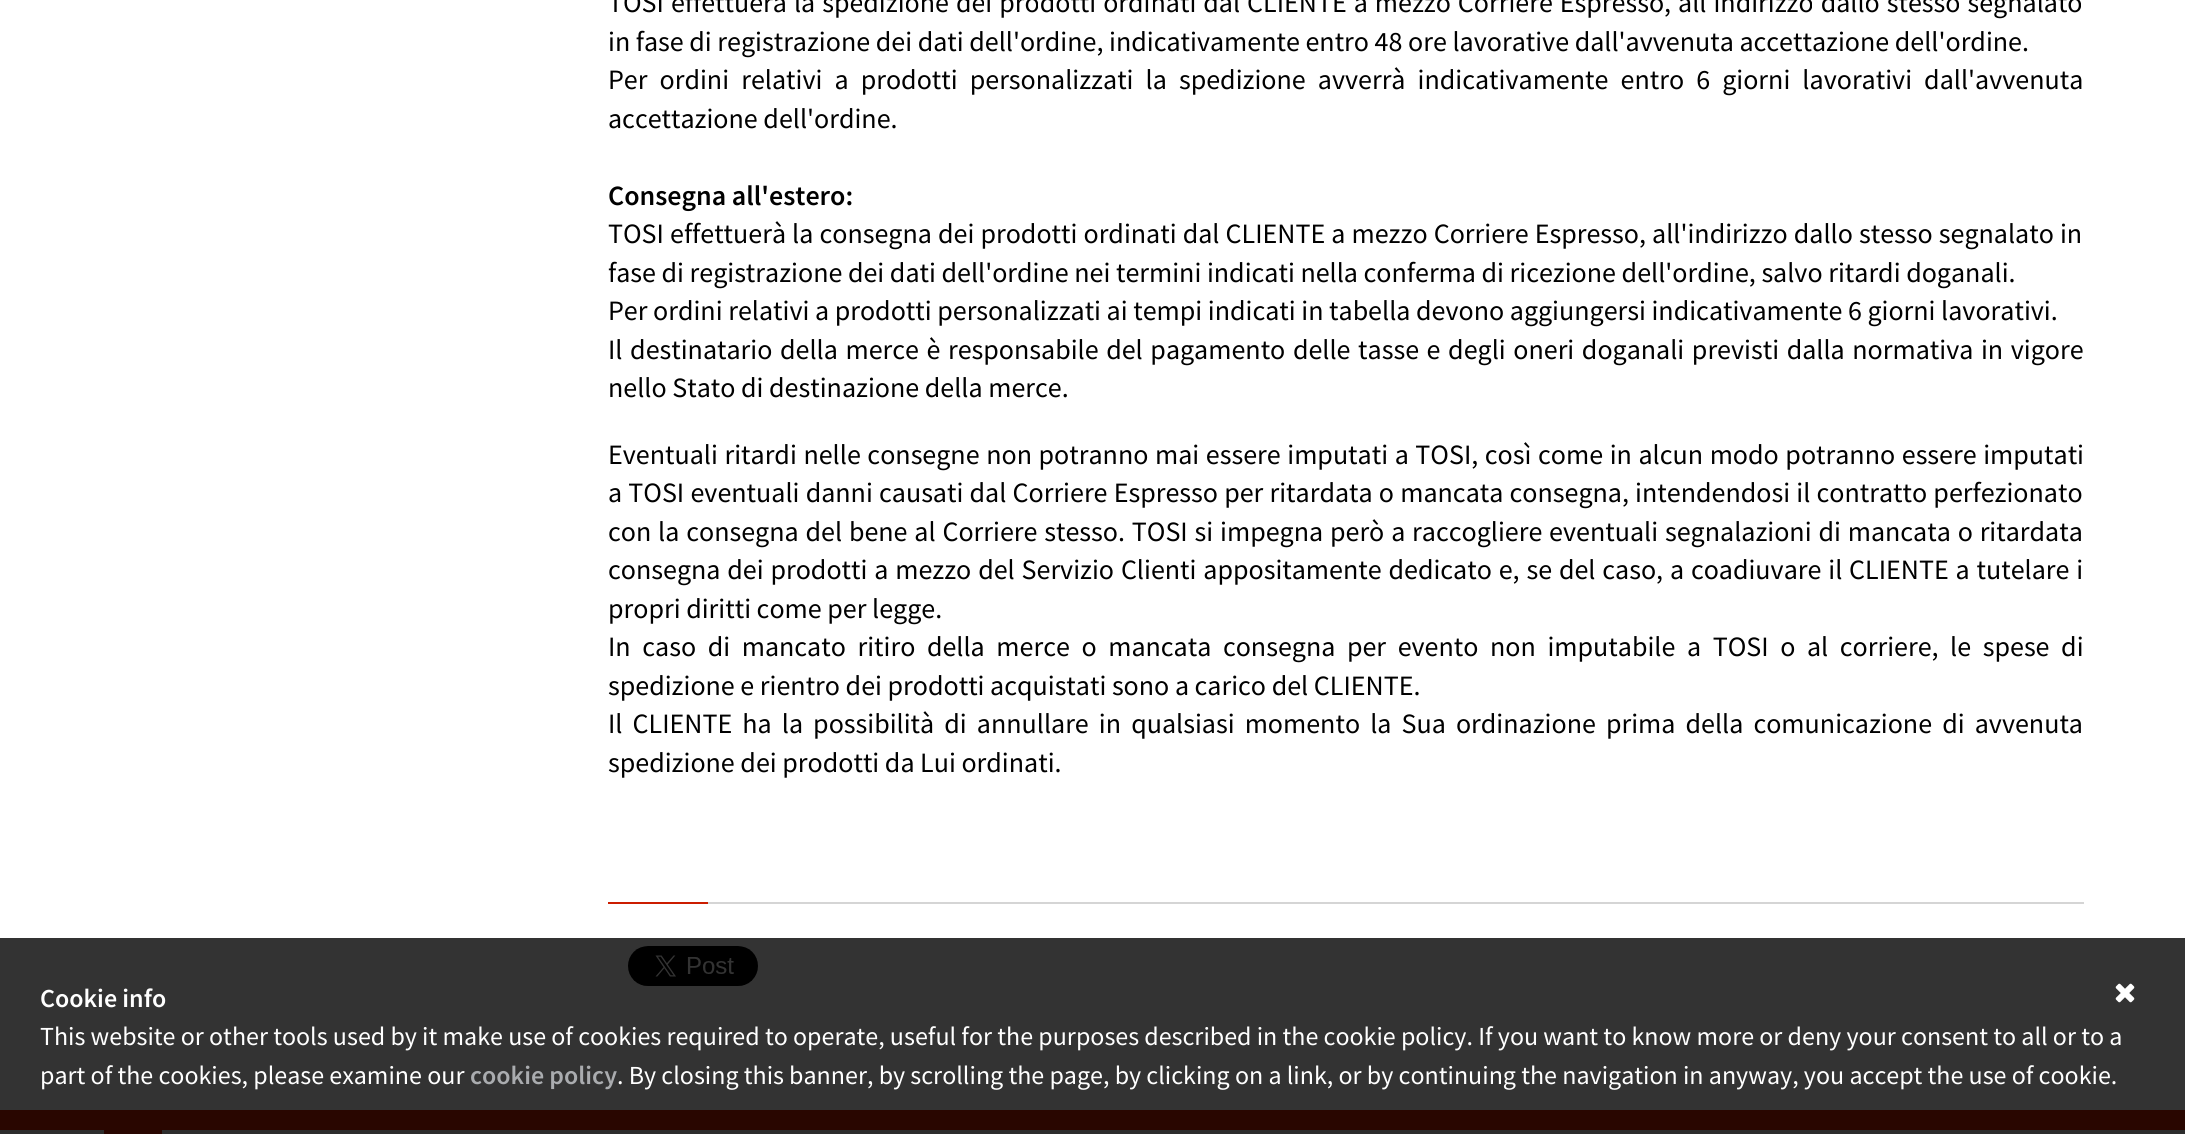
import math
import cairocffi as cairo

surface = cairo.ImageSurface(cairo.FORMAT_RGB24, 2185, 1134)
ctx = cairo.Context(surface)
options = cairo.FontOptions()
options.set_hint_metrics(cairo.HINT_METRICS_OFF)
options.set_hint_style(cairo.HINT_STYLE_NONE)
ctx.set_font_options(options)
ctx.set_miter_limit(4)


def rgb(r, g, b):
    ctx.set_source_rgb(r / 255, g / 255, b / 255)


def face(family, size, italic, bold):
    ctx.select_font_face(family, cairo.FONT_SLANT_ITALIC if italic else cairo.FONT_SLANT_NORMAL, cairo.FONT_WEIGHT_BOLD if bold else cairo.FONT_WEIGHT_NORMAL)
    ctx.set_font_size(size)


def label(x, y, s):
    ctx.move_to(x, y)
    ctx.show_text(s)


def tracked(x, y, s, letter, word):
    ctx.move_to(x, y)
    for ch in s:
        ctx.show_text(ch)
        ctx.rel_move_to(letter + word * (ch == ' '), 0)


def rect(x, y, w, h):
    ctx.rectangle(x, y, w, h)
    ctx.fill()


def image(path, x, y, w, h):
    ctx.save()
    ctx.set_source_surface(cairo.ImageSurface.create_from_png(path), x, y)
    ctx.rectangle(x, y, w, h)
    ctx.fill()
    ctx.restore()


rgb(45, 45, 45)
ctx.paint()
rgb(255, 255, 255)
rect(0, 0, 2185, 938)
rgb(51, 51, 51)
rect(0, 938, 2185, 172)
face('Source Sans Pro', 28, 0, 0)
rgb(0, 0, 0)
tracked(608, 12, 'TOSI effettuerà la spedizione dei prodotti ordinati dal CLIENTE a mezzo Corriere Espresso, all\'indirizzo dallo stesso segnalato', 0, 1.4)
label(608, 51, 'in fase di registrazione dei dati dell\'ordine, indicativamente entro 48 ore lavorative dall\'avvenuta accettazione dell\'ordine.')
tracked(608, 89, 'Per ordini relativi a prodotti personalizzati la spedizione avverrà indicativamente entro 6 giorni lavorativi dall\'avvenuta', 0, 6.5)
label(608, 128, 'accettazione dell\'ordine.')
face('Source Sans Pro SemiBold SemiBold', 28, 0, 0)
label(608, 205, 'Consegna all\'estero:')
face('Source Sans Pro', 28, 0, 0)
tracked(608, 243, 'TOSI effettuerà la consegna dei prodotti ordinati dal CLIENTE a mezzo Corriere Espresso, all\'indirizzo dallo stesso segnalato in', 0, 0.5)
label(608, 282, 'fase di registrazione dei dati dell\'ordine nei termini indicati nella conferma di ricezione dell\'ordine, salvo ritardi doganali.')
label(608, 320, 'Per ordini relativi a prodotti personalizzati ai tempi indicati in tabella devono aggiungersi indicativamente 6 giorni lavorativi.')
tracked(608, 359, 'Il destinatario della merce è responsabile del pagamento delle tasse e degli oneri doganali previsti dalla normativa in vigore', 0, 2)
label(608, 397, 'nello Stato di destinazione della merce.')
tracked(608, 464, 'Eventuali ritardi nelle consegne non potranno mai essere imputati a TOSI, così come in alcun modo potranno essere imputati', 0, 1)
tracked(608, 502, 'a TOSI eventuali danni causati dal Corriere Espresso per ritardata o mancata consegna, intendendosi il contratto perfezionato', 0, 0.6)
tracked(608, 541, 'con la consegna del bene al Corriere stesso. TOSI si impegna però a raccogliere eventuali segnalazioni di mancata o ritardata', 0, 1.25)
tracked(608, 579, 'consegna dei prodotti a mezzo del Servizio Clienti appositamente dedicato e, se del caso, a coadiuvare il CLIENTE a tutelare i', 0, 1.25)
label(608, 618, 'propri diritti come per legge.')
tracked(608, 656, 'In caso di mancato ritiro della merce o mancata consegna per evento non imputabile a TOSI o al corriere, le spese di', 0, 6)
label(608, 695, 'spedizione e rientro dei prodotti acquistati sono a carico del CLIENTE.')
tracked(608, 733, 'Il CLIENTE ha la possibilità di annullare in qualsiasi momento la Sua ordinazione prima della comunicazione di avvenuta', 0, 4.5)
label(608, 772, 'spedizione dei prodotti da Lui ordinati.')
rgb(213, 213, 213)
rect(708, 902, 1376, 2)
rgb(203, 29, 0)
rect(608, 902, 100, 2)
image('image0.png', 628, 946, 130, 40)
face('Source Sans Pro SemiBold SemiBold', 26, 0, 0)
rgb(255, 255, 255)
label(40, 1007, 'Cookie info')
image('image1.png', 2115, 983, 20, 20)
face('Source Sans Pro', 26, 0, 0)
label(40, 1045, 'This website or other tools used by it make use of cookies required to operate, useful for the purposes described in the cookie policy. If you want to know more or deny your consent to all or to a')
label(40, 1084, 'part of the cookies, please examine our')
face('Source Sans Pro SemiBold SemiBold', 26, 0, 0)
rgb(170, 172, 175)
label(470, 1084, 'cookie policy')
face('Source Sans Pro', 26, 0, 0)
rgb(255, 255, 255)
label(617, 1084, '. By closing this banner, by scrolling the page, by clicking on a link, or by continuing the navigation in anyway, you accept the use of cookie.')
rgb(41, 6, 0)
rect(0, 1110, 2185, 20)
rect(104, 1130, 58, 4)
surface.write_to_png('render.png')
